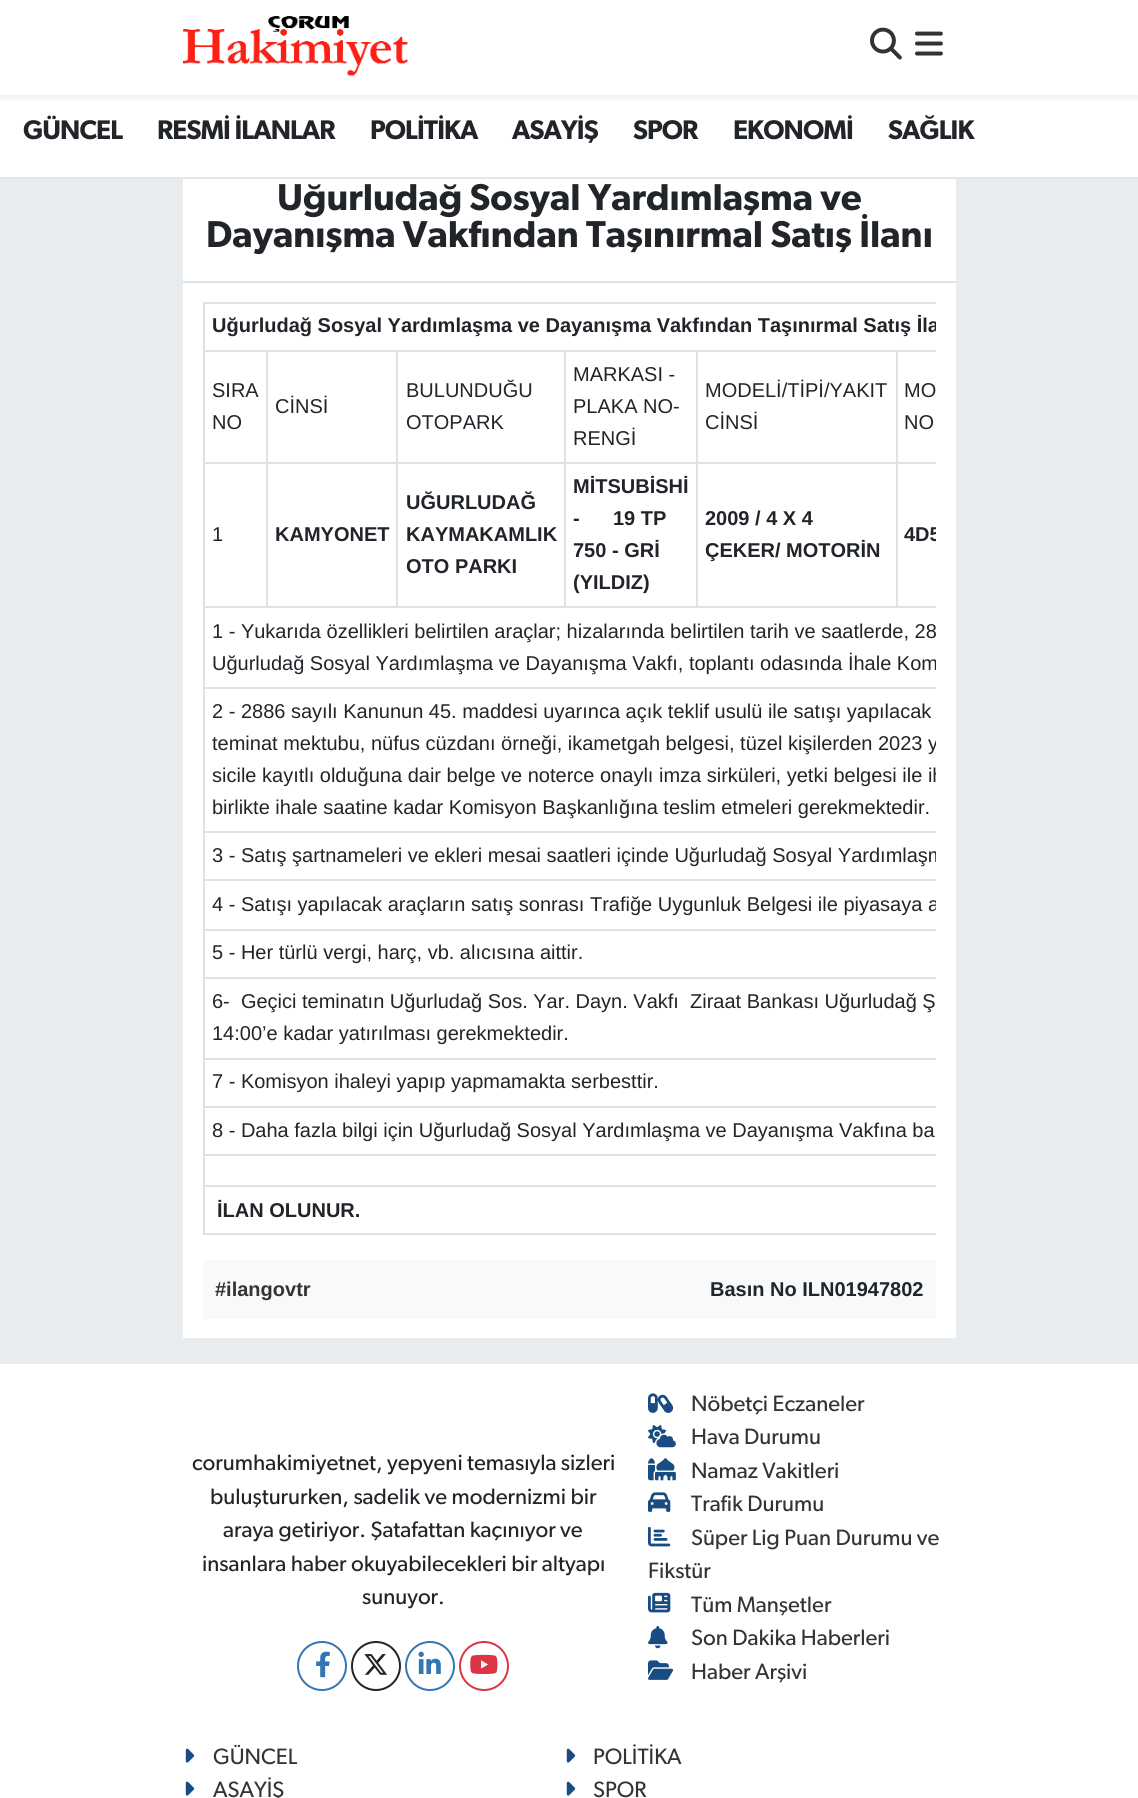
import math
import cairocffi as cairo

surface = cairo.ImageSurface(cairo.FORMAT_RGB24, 1138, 1798)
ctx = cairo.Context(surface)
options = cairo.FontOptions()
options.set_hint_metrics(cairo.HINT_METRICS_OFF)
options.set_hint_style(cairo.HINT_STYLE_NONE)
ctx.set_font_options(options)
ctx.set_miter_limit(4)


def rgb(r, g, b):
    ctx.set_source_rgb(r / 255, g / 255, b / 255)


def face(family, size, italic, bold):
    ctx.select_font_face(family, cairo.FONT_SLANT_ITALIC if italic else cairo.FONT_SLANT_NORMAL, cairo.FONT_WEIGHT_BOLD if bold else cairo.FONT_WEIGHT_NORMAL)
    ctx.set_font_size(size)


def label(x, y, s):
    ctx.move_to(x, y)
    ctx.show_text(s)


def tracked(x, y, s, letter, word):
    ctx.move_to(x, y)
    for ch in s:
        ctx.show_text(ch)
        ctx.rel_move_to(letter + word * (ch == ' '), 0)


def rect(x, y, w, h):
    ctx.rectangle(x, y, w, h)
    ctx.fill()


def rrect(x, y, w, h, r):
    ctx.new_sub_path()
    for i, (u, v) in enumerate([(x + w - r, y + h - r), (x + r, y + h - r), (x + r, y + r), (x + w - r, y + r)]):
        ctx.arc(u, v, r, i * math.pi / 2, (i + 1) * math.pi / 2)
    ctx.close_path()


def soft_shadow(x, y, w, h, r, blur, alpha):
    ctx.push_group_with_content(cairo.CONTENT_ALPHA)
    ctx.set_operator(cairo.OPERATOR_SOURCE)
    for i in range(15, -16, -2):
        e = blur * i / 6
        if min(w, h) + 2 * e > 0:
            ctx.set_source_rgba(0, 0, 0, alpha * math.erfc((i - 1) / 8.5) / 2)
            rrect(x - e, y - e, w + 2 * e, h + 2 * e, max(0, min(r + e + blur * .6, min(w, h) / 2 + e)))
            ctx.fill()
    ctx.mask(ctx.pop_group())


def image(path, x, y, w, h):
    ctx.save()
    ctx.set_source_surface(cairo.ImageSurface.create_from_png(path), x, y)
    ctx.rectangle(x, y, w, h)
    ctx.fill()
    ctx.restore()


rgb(233, 236, 239)
ctx.paint()
rgb(255, 255, 255)
rect(0, 95, 1138, 82)
rgb(0, 0, 0)
soft_shadow(0, 3, 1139, 95, 0, 3, 0.07)
rgb(255, 255, 255)
rect(0, 0, 1138, 95)
image('image0.png', 183, 16, 225, 60)
image('image1.png', 870, 27, 32, 33)
image('image2.png', 915, 31, 28, 25)
rgb(230, 230, 230)
rect(0, 177, 1138, 2)
face('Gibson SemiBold', 27, 0, 0)
rgb(33, 37, 41)
tracked(23, 139, 'GÜNCEL', -0.9, 0)
tracked(157, 139, 'RESMİ İLANLAR', -0.9, 0)
tracked(370, 139, 'POLİTİKA', -0.9, 0)
tracked(512, 139, 'ASAYİŞ', -0.9, 0)
tracked(633, 139, 'SPOR', -0.9, 0)
tracked(733, 139, 'EKONOMİ', -0.9, 0)
tracked(888, 139, 'SAĞLIK', -0.9, 0)
rgb(255, 255, 255)
rect(183, 179, 773, 1159)
rgb(222, 226, 230)
rect(183, 281, 773, 2)
face('Gibson SemiBold', 37.5, 0, 0)
rgb(33, 37, 41)
label(277, 210, 'Uğurludağ Sosyal Yardımlaşma ve')
label(206, 247, 'Dayanışma Vakfından Taşınırmal Satış İlanı')
rgb(222, 226, 230)
rect(203, 302, 733, 2)
rect(203, 1233, 733, 2)
rect(203, 302, 2, 933)
ctx.save()
ctx.rectangle(203, 302, 733, 958)
ctx.clip()
face('Liberation Sans', 20, 0, 1)
rgb(33, 37, 41)
label(212, 332, 'Uğurludağ Sosyal Yardımlaşma ve Dayanışma Vakfından Taşınırmal Satış İla')
ctx.restore()
rect(203, 350, 733, 2)
face('Liberation Sans', 20, 0, 0)
rgb(33, 37, 41)
label(212, 397, 'SIRA')
label(212, 429, 'NO')
label(275, 413, 'CİNSİ')
label(406, 397, 'BULUNDUĞU')
label(406, 429, 'OTOPARK')
label(573, 381, 'MARKASI -')
label(573, 413, 'PLAKA NO-')
label(573, 445, 'RENGİ')
label(705, 397, 'MODELİ/TİPİ/YAKIT')
label(705, 429, 'CİNSİ')
label(904, 397, 'MO')
label(904, 429, 'NO')
rgb(222, 226, 230)
rect(203, 462, 733, 2)
rgb(33, 37, 41)
label(212, 541, '1')
rgb(222, 226, 230)
rect(203, 606, 733, 2)
rect(266, 350, 2, 258)
face('Liberation Sans', 20, 0, 1)
rgb(33, 37, 41)
label(275, 541, 'KAMYONET')
rgb(222, 226, 230)
rect(396, 350, 2, 258)
rgb(33, 37, 41)
label(406, 509, 'UĞURLUDAĞ')
label(406, 541, 'KAYMAKAMLIK')
label(406, 573, 'OTO PARKI')
rgb(222, 226, 230)
rect(564, 350, 2, 258)
rgb(33, 37, 41)
label(573, 493, 'MİTSUBİSHİ')
label(573, 525, '-      19 TP')
label(573, 557, '750 - GRİ')
label(573, 589, '(YILDIZ)')
rgb(222, 226, 230)
rect(696, 350, 2, 258)
rgb(33, 37, 41)
label(705, 525, '2009 / 4 X 4')
label(705, 557, 'ÇEKER/ MOTORİN')
rgb(222, 226, 230)
rect(896, 350, 2, 258)
ctx.save()
ctx.rectangle(203, 302, 733, 958)
ctx.clip()
rgb(33, 37, 41)
label(904, 541, '4D5')
ctx.restore()
face('Liberation Sans', 20, 0, 0)
rgb(33, 37, 41)
label(212, 638, '1 - Yukarıda özellikleri belirtilen araçlar; hizalarında belirtilen tarih ve saatlerde, 28')
ctx.save()
ctx.rectangle(203, 302, 733, 958)
ctx.clip()
label(212, 670, 'Uğurludağ Sosyal Yardımlaşma ve Dayanışma Vakfı, toplantı odasında İhale Kom')
ctx.restore()
rgb(222, 226, 230)
rect(203, 687, 733, 2)
rgb(33, 37, 41)
label(212, 718, '2 - 2886 sayılı Kanunun 45. maddesi uyarınca açık teklif usulü ile satışı yapılacak')
ctx.save()
ctx.rectangle(203, 302, 733, 958)
ctx.clip()
label(212, 750, 'teminat mektubu, nüfus cüzdanı örneği, ikametgah belgesi, tüzel kişilerden 2023 y')
label(212, 782, 'sicile kayıtlı olduğuna dair belge ve noterce onaylı imza sirküleri, yetki belgesi ile ih')
ctx.restore()
label(212, 814, 'birlikte ihale saatine kadar Komisyon Başkanlığına teslim etmeleri gerekmektedir.')
rgb(222, 226, 230)
rect(203, 831, 733, 2)
ctx.save()
ctx.rectangle(203, 302, 733, 958)
ctx.clip()
rgb(33, 37, 41)
label(212, 862, '3 - Satış şartnameleri ve ekleri mesai saatleri içinde Uğurludağ Sosyal Yardımlaşm')
ctx.restore()
rect(203, 879, 733, 2)
ctx.save()
ctx.rectangle(203, 302, 733, 958)
ctx.clip()
rgb(33, 37, 41)
label(212, 911, '4 - Satışı yapılacak araçların satış sonrası Trafiğe Uygunluk Belgesi ile piyasaya a')
ctx.restore()
rect(203, 929, 733, 2)
rgb(33, 37, 41)
label(212, 959, '5 - Her türlü vergi, harç, vb. alıcısına aittir.')
rgb(222, 226, 230)
rect(203, 977, 733, 2)
rgb(33, 37, 41)
label(212, 1008, '6-  Geçici teminatın Uğurludağ Sos. Yar. Dayn. Vakfı  Ziraat Bankası Uğurludağ Ş')
label(212, 1040, '14:00’e kadar yatırılması gerekmektedir.')
rgb(222, 226, 230)
rect(203, 1058, 733, 2)
rgb(33, 37, 41)
label(212, 1088, '7 - Komisyon ihaleyi yapıp yapmamakta serbesttir.')
rgb(222, 226, 230)
rect(203, 1106, 733, 2)
rgb(33, 37, 41)
label(212, 1137, '8 - Daha fazla bilgi için Uğurludağ Sosyal Yardımlaşma ve Dayanışma Vakfına ba')
rgb(222, 226, 230)
rect(203, 1154, 733, 2)
rect(203, 1185, 733, 2)
face('Liberation Sans', 20, 0, 1)
rgb(33, 37, 41)
label(217, 1217, 'İLAN OLUNUR.')
rgb(248, 249, 250)
rect(203, 1260, 733, 59)
rgb(51, 51, 51)
label(215, 1296, '#ilangovtr')
rgb(33, 37, 41)
label(710, 1296, 'Basın No ILN01947802')
rgb(255, 255, 255)
rect(0, 1364, 1138, 434)
face('Gibson', 22.3, 0, 0)
rgb(33, 37, 41)
label(192, 1470, 'corumhakimiyetnet, yepyeni temasıyla sizleri')
label(210, 1504, 'buluştururken, sadelik ve modernizmi bir')
label(223, 1537, 'araya getiriyor. Şatafattan kaçınıyor ve')
label(202, 1571, 'insanlara haber okuyabilecekleri bir altyapı')
label(362, 1604, 'sunuyor.')
ctx.new_path()
ctx.arc(322, 1666, 24, 0, 2 * math.pi)
rgb(50, 118, 179)
ctx.stroke()
image('image3.png', 316, 1651, 14, 27)
ctx.arc(376, 1666, 24, 0, 2 * math.pi)
rgb(33, 37, 41)
ctx.stroke()
image('image4.png', 364, 1654, 24, 21)
ctx.arc(430, 1666, 24, 0, 2 * math.pi)
rgb(50, 118, 179)
ctx.stroke()
image('image5.png', 418, 1651, 23, 23)
ctx.arc(484, 1666, 24, 0, 2 * math.pi)
rgb(220, 53, 69)
ctx.stroke()
image('image6.png', 470, 1654, 28, 20)
image('image7.png', 648, 1393, 26, 20)
rgb(51, 51, 51)
label(691, 1411, 'Nöbetçi Eczaneler')
image('image8.png', 648, 1425, 28, 23)
label(691, 1444, 'Hava Durumu')
image('image9.png', 648, 1458, 28, 23)
label(691, 1478, 'Namaz Vakitleri')
image('image10.png', 648, 1492, 23, 20)
label(691, 1511, 'Trafik Durumu')
image('image11.png', 648, 1526, 23, 21)
label(691, 1545, 'Süper Lig Puan Durumu ve')
label(648, 1578, 'Fikstür')
image('image12.png', 648, 1592, 23, 21)
label(691, 1612, 'Tüm Manşetler')
image('image13.png', 648, 1626, 20, 23)
label(691, 1645, 'Son Dakika Haberleri')
image('image14.png', 648, 1660, 26, 20)
label(691, 1679, 'Haber Arşivi')
image('image15.png', 185, 1748, 10, 15)
label(213, 1764, 'GÜNCEL')
image('image15.png', 566, 1748, 10, 15)
label(593, 1764, 'POLİTİKA')
image('image15.png', 185, 1781, 10, 15)
label(213, 1797, 'ASAYİŞ')
image('image15.png', 566, 1781, 10, 15)
label(593, 1797, 'SPOR')
surface.write_to_png('render.png')
